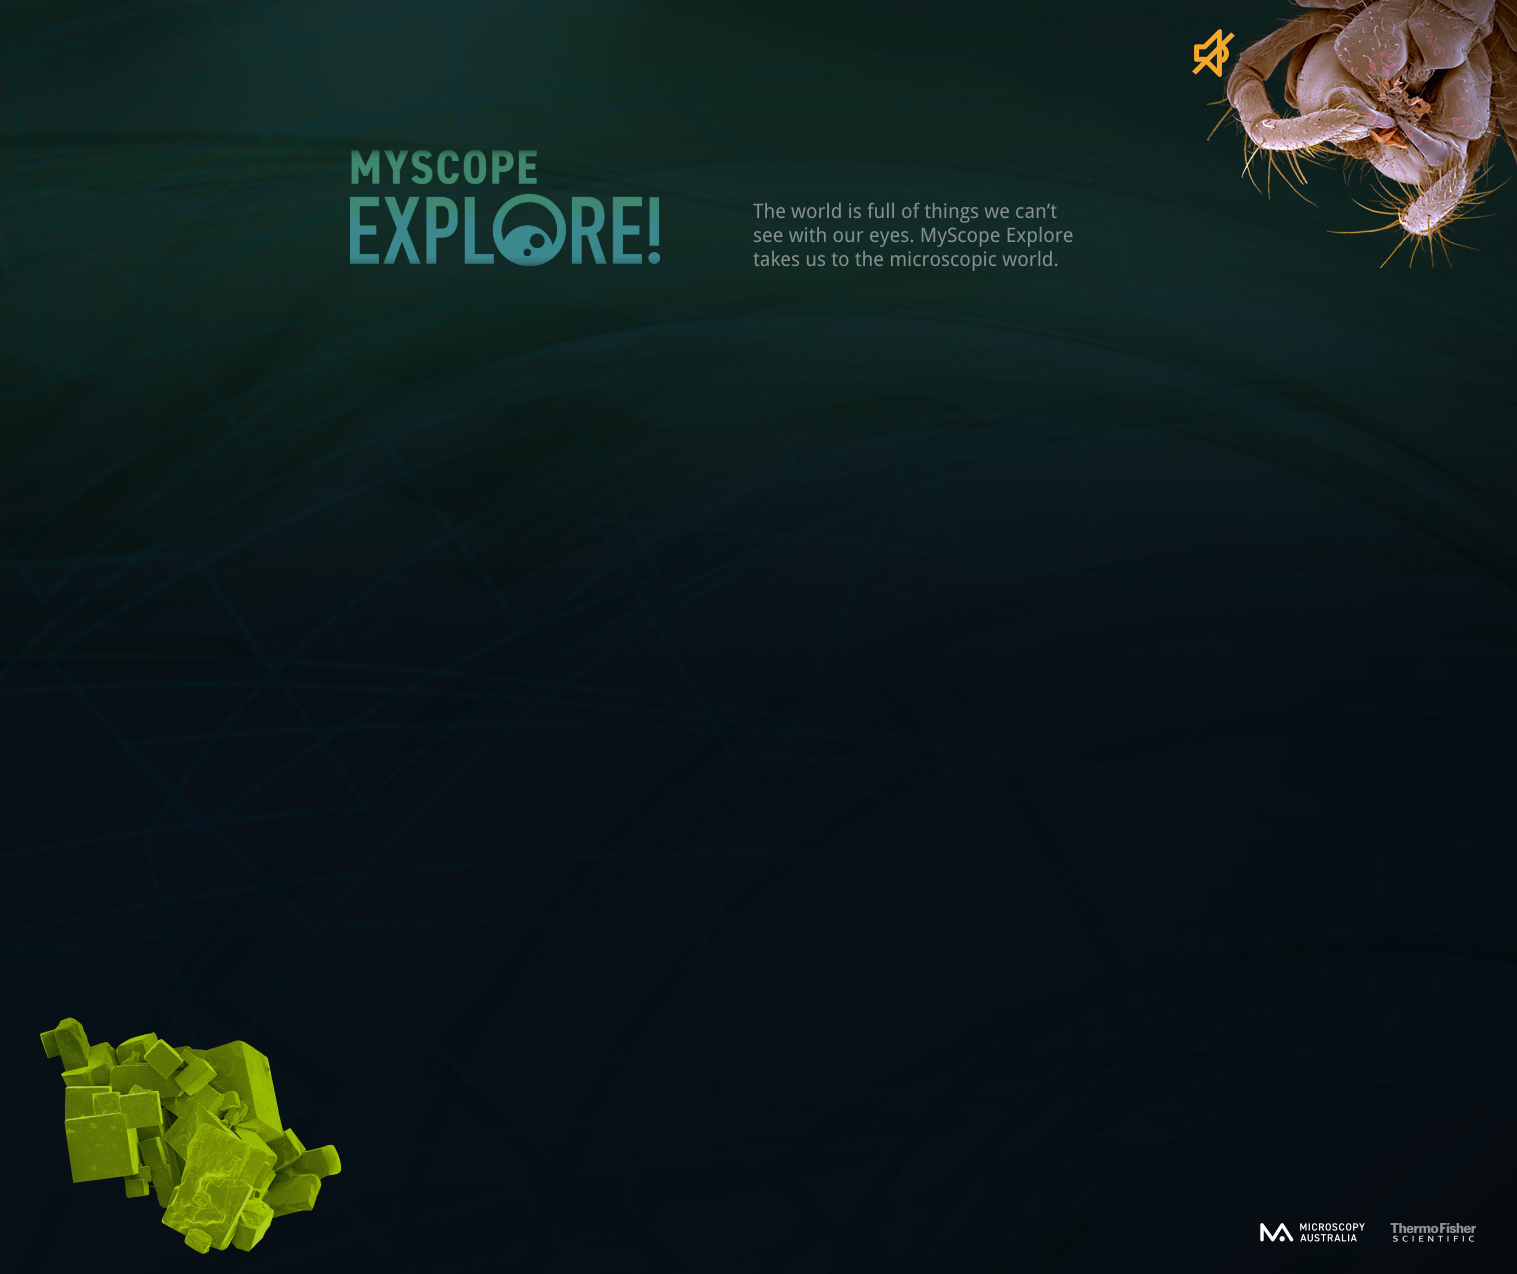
import math
import cairocffi as cairo

surface = cairo.ImageSurface(cairo.FORMAT_RGB24, 1517, 1274)
ctx = cairo.Context(surface)
options = cairo.FontOptions()
options.set_hint_metrics(cairo.HINT_METRICS_OFF)
options.set_hint_style(cairo.HINT_STYLE_NONE)
ctx.set_font_options(options)
ctx.set_miter_limit(4)


def rgb(r, g, b):
    ctx.set_source_rgb(r / 255, g / 255, b / 255)


def face(family, size, italic, bold):
    ctx.select_font_face(family, cairo.FONT_SLANT_ITALIC if italic else cairo.FONT_SLANT_NORMAL, cairo.FONT_WEIGHT_BOLD if bold else cairo.FONT_WEIGHT_NORMAL)
    ctx.set_font_size(size)


def label(x, y, s):
    ctx.move_to(x, y)
    ctx.show_text(s)


def image(path, x, y, w, h):
    ctx.save()
    ctx.set_source_surface(cairo.ImageSurface.create_from_png(path), x, y)
    ctx.rectangle(x, y, w, h)
    ctx.fill()
    ctx.restore()


rgb(255, 255, 255)
ctx.paint()
image('image0.png', 0, 0, 1517, 1274)
image('image1.png', 1207, 0, 310, 268)
image('image2.png', 1192, 29, 43, 48)
image('image3.png', 350, 150, 310, 116)
face('Droid Sans', 20, 0, 0)
rgb(131, 143, 142)
label(753, 218, 'The world is full of things we can’t')
label(753, 242, 'see with our eyes. MyScope Explore')
label(753, 266, 'takes us to the microscopic world.')
image('image4.png', 40, 1017, 302, 237)
image('image5.png', 1260, 1223, 105, 19)
image('image6.png', 1390, 1223, 86, 19)
surface.write_to_png('render.png')
